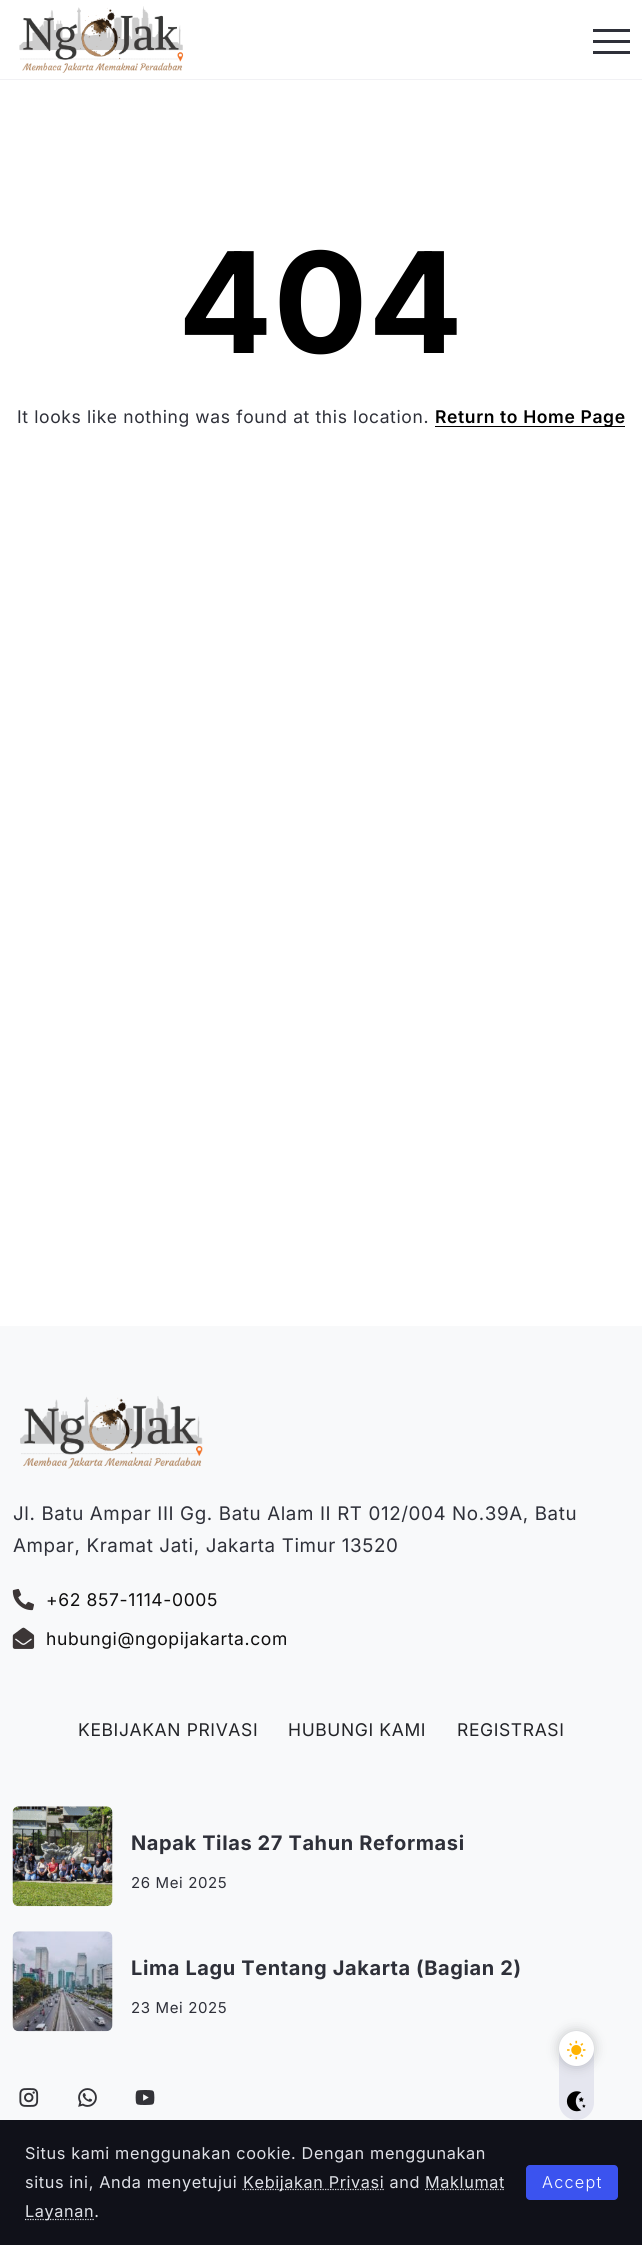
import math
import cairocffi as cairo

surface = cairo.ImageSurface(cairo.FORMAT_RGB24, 642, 2245)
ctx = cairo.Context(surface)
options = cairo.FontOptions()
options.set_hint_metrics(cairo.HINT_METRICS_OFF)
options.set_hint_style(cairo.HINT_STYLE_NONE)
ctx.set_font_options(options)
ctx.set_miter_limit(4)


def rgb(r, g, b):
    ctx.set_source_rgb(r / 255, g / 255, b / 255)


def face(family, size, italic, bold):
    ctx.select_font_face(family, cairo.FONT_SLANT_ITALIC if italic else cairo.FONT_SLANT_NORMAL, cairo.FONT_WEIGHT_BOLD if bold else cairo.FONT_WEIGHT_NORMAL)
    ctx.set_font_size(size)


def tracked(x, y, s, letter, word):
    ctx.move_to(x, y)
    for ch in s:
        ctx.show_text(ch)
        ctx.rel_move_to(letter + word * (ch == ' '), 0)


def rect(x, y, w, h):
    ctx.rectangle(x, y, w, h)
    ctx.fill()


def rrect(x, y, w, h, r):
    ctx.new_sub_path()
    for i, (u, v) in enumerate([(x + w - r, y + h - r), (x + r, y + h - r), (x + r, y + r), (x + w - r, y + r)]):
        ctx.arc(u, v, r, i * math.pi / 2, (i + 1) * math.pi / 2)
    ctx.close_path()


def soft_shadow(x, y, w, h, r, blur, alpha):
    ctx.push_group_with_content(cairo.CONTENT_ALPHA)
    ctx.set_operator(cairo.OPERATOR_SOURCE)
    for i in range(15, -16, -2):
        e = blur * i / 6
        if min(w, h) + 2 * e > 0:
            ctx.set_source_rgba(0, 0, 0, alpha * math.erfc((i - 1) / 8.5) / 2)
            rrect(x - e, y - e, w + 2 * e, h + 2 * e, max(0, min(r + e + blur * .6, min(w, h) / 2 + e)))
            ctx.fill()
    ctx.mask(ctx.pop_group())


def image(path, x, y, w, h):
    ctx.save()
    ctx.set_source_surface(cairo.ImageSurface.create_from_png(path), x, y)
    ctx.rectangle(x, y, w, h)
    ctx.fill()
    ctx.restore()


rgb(255, 255, 255)
ctx.paint()
rgb(241, 241, 244)
rect(0, 79, 642, 1)
image('image0.png', 19, 6, 165, 67)
rgb(46, 48, 57)
rect(593, 29, 37, 3)
rect(593, 40, 37, 3)
rect(593, 51, 37, 3)
face('Inter', 140, 0, 1)
rgb(0, 0, 0)
tracked(178, 353, '404', 0.62, 0)
face('Inter', 17.5, 0, 0)
rgb(46, 48, 57)
tracked(17, 423, 'It looks like nothing was found at this location.', 0.62, 0)
rgb(0, 0, 0)
rect(435, 426, 190, 1)
face('Inter SemiBold', 17.5, 0, 0)
tracked(435, 423, 'Return to Home Page', 0.62, 0)
rgb(248, 249, 250)
rect(0, 1326, 642, 794)
image('image1.png', 20, 1396, 183, 73)
face('Inter', 18.75, 0, 0)
rgb(46, 48, 57)
tracked(13, 1520, 'Jl. Batu Ampar III Gg. Batu Alam II RT 012/004 No.39A, Batu', 0.62, 0)
tracked(13, 1552, 'Ampar, Kramat Jati, Jakarta Timur 13520', 0.62, 0)
image('image2.png', 12, 1588, 22, 23)
face('Inter', 17.5, 0, 0)
rgb(15, 14, 14)
tracked(46, 1606, '+62 857-1114-0005', 0.62, 0)
image('image3.png', 12, 1627, 23, 22)
tracked(46, 1645, 'hubungi@ngopijakarta.com', 0.62, 0)
rgb(35, 36, 40)
tracked(78, 1736, 'KEBIJAKAN PRIVASI', 0.62, 0)
tracked(288, 1736, 'HUBUNGI KAMI', 0.62, 0)
tracked(457, 1736, 'REGISTRASI', 0.62, 0)
image('image4.png', 12, 1806, 101, 101)
face('Inter', 20, 0, 1)
rgb(46, 48, 57)
tracked(131, 1850, 'Napak Tilas 27 Tahun Reformasi', 0.62, 0)
face('Inter', 15, 0, 0)
tracked(131, 1888, '26 Mei 2025', 0.62, 0)
image('image5.png', 12, 1931, 101, 101)
face('Inter', 20, 0, 1)
tracked(131, 1975, 'Lima Lagu Tentang Jakarta (Bagian 2)', 0.62, 0)
face('Inter', 15, 0, 0)
tracked(131, 2013, '23 Mei 2025', 0.62, 0)
image('image6.png', 19, 2088, 20, 19)
image('image7.png', 78, 2088, 19, 19)
image('image8.png', 135, 2090, 20, 15)
rgb(229, 230, 239)
rrect(559, 2031, 35, 89, 17.5)
ctx.fill()
rgb(47, 49, 57)
soft_shadow(559, 2031, 35, 35, 17.5, 6, 0.26)
rgb(255, 255, 255)
ctx.arc(576.5, 2048.5, 17.5, 0, 2 * math.pi)
ctx.fill()
image('image9.png', 567, 2040, 19, 20)
image('image10.png', 566, 2091, 20, 21)
rgb(16, 17, 25)
rect(0, 2120, 642, 125)
face('Inter', 16.25, 0, 0)
rgb(223, 225, 231)
tracked(25, 2159, 'Situs kami menggunakan cookie. Dengan menggunakan', 0.62, 0)
tracked(25, 2188, 'situs ini, Anda menyetujui', 0.62, 0)
ctx.new_path()
ctx.move_to(242.5, 2189.5)
ctx.line_to(384, 2189.5)
ctx.set_line_width(1.2)
ctx.set_dash([1.25, 1.25])
ctx.stroke()
tracked(243, 2188, 'Kebijakan Privasi and', 0.62, 0)
ctx.new_path()
ctx.move_to(425, 2189.5)
ctx.line_to(505, 2189.5)
ctx.stroke()
tracked(425, 2188, 'Maklumat', 0.62, 0)
ctx.new_path()
ctx.move_to(25, 2219.5)
ctx.line_to(94.5, 2219.5)
ctx.stroke()
tracked(25, 2217, 'Layanan.', 0.62, 0)
rgb(59, 83, 239)
rrect(526, 2165, 92, 35, 4)
ctx.fill()
face('Inter Light', 16.25, 0, 0)
rgb(255, 255, 255)
tracked(542, 2188, 'Accept', 1.25, 0)
surface.write_to_png('render.png')
